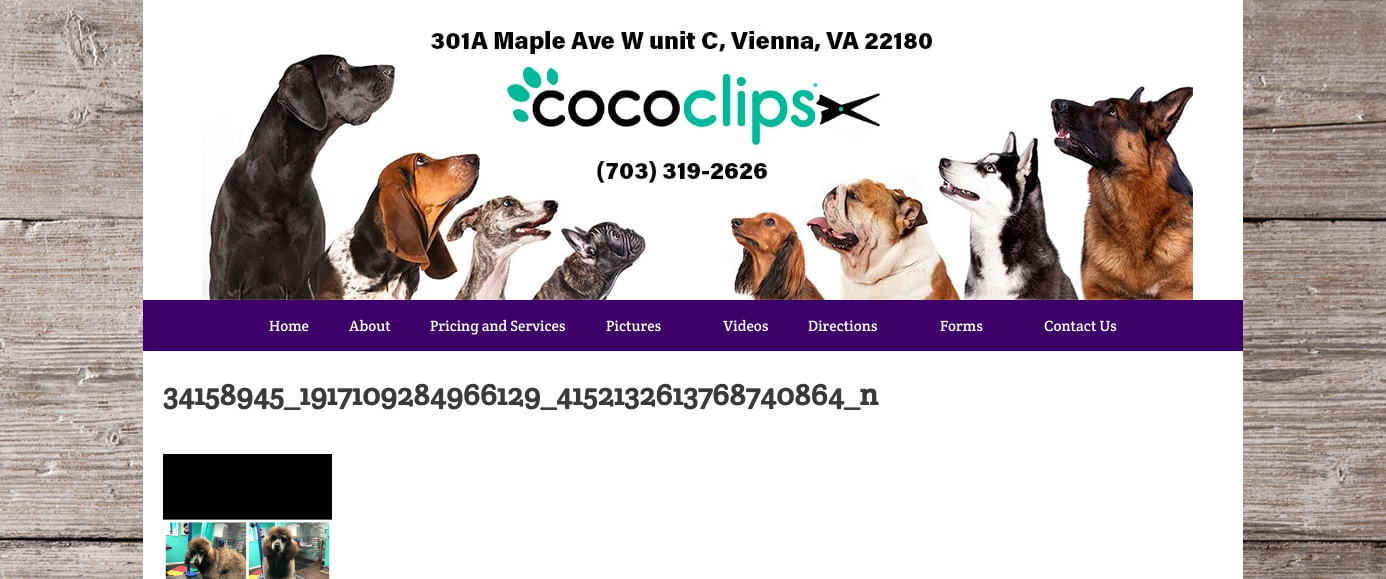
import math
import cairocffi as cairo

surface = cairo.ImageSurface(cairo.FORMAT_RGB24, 1386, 579)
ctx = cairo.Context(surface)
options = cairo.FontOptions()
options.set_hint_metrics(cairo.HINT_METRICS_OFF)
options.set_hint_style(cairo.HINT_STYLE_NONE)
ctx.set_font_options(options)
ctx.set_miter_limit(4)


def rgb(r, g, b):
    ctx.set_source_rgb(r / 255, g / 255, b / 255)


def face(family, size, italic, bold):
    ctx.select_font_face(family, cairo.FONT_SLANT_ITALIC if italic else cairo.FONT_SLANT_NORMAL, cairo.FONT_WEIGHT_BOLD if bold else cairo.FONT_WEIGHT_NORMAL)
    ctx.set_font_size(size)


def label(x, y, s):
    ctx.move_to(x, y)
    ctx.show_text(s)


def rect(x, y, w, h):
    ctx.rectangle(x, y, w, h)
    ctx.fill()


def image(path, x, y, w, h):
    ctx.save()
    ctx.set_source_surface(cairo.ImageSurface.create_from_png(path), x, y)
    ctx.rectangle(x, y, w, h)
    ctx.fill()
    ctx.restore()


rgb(255, 255, 255)
ctx.paint()
image('image0.png', 0, 0, 1386, 579)
rgb(255, 255, 255)
rect(143, 0, 1100, 300)
image('image1.png', 201, 24, 992, 276)
rgb(60, 0, 104)
rect(143, 300, 1100, 51)
face('Crete Round', 15, 0, 0)
rgb(255, 255, 255)
label(269, 331, 'Home')
label(349, 331, 'About')
label(430, 331, 'Pricing and Services')
label(606, 331, 'Pictures')
label(723, 331, 'Videos')
label(808, 331, 'Directions')
label(940, 331, 'Forms')
label(1044, 331, 'Contact Us')
rect(143, 351, 1100, 228)
face('Crete Round', 31, 0, 1)
rgb(58, 58, 58)
label(163, 405, '34158945_1917109284966129_4152132613768740864_n')
image('image2.png', 163, 454, 169, 125)
surface.write_to_png('render.png')
